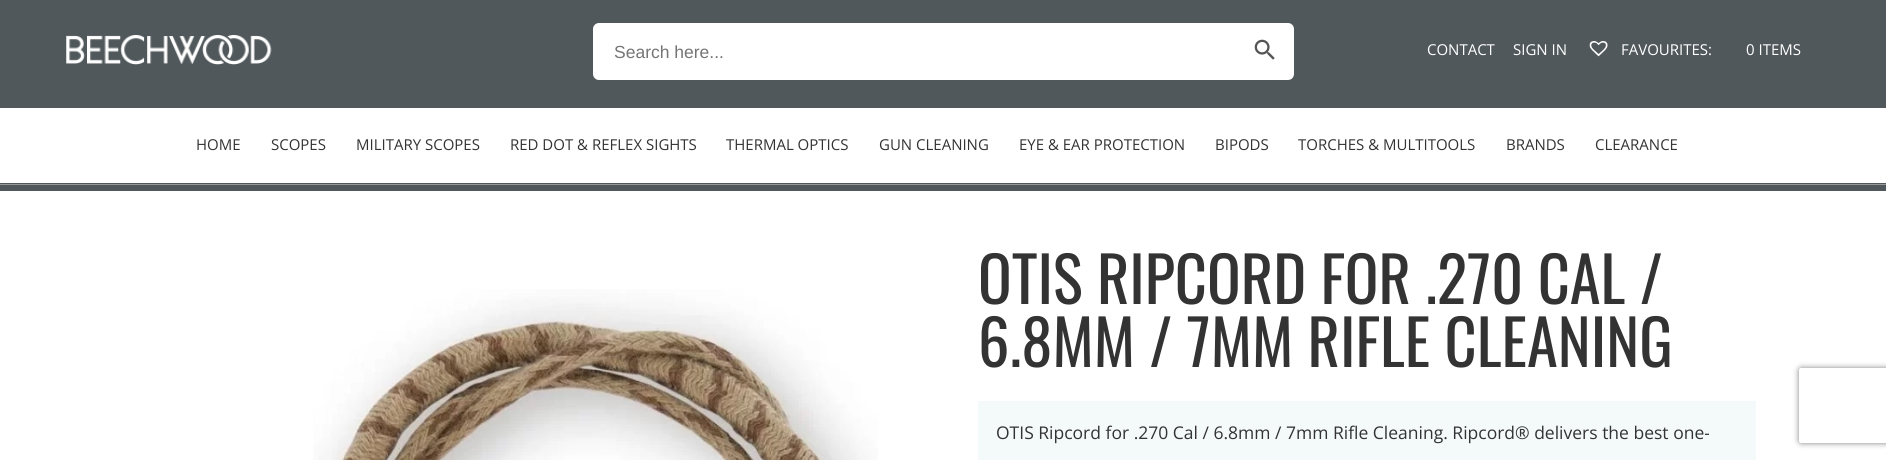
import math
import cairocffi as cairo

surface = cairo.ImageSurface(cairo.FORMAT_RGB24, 1886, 460)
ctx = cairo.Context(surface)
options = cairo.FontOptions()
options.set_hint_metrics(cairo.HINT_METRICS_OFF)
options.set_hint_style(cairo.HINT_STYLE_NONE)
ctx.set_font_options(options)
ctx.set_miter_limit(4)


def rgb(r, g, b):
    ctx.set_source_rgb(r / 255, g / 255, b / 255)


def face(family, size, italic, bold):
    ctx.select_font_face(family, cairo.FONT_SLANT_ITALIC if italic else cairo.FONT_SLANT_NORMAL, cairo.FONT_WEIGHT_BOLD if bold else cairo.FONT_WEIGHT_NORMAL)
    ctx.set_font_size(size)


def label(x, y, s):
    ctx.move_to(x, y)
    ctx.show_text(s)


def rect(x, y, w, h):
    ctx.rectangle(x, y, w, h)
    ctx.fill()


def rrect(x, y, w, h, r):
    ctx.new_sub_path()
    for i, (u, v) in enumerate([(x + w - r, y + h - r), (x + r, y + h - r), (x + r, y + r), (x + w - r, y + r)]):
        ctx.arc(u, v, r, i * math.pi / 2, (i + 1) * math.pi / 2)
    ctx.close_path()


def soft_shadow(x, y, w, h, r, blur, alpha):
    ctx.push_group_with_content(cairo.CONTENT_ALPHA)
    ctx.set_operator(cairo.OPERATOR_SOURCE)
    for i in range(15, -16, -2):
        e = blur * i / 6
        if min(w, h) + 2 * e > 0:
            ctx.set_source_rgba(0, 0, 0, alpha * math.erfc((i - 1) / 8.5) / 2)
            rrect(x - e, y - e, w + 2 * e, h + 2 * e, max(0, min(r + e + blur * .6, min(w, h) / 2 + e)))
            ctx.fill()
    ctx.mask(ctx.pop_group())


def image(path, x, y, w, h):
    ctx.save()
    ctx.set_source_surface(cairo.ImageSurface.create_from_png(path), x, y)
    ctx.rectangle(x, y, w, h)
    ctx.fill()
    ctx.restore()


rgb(255, 255, 255)
ctx.paint()
rgb(81, 88, 91)
rect(0, 0, 1886, 108)
image('image0.png', 66, 35, 206, 30)
rgb(255, 255, 255)
rrect(593, 23, 701, 57, 6)
ctx.fill()
face('Liberation Sans', 17.5, 0, 0)
rgb(117, 117, 117)
label(614, 58, 'Search here...')
image('image1.png', 1254, 39, 21, 21)
face('Open Sans', 15, 0, 0)
rgb(255, 255, 255)
label(1427, 55, 'CONTACT')
label(1513, 55, 'SIGN IN')
image('image2.png', 1589, 41, 19, 16)
label(1621, 55, 'FAVOURITES:')
label(1746, 55, '0 ITEMS')
rgb(81, 88, 91)
rect(0, 183, 1886, 1)
rgb(51, 51, 51)
label(196, 150, 'HOME')
label(271, 150, 'SCOPES')
label(356, 150, 'MILITARY SCOPES')
label(510, 150, 'RED DOT & REFLEX SIGHTS')
label(726, 150, 'THERMAL OPTICS')
label(879, 150, 'GUN CLEANING')
label(1019, 150, 'EYE & EAR PROTECTION')
label(1215, 150, 'BIPODS')
label(1298, 150, 'TORCHES & MULTITOOLS')
label(1506, 150, 'BRANDS')
label(1595, 150, 'CLEARANCE')
rgb(81, 88, 91)
rect(0, 185, 1886, 6)
rgb(152, 152, 152)
rect(0, 184, 1886, 1)
image('image3.png', 313, 289, 565, 171)
face('Oswald', 62.5, 0, 0)
rgb(51, 51, 51)
label(978, 304, 'OTIS RIPCORD FOR .270 CAL /')
label(978, 367, '6.8MM / 7MM RIFLE CLEANING')
rgb(244, 250, 250)
rect(978, 401, 778, 59)
face('Open Sans', 17.5, 0, 0)
rgb(51, 51, 51)
label(996, 439, 'OTIS Ripcord for .270 Cal / 6.8mm / 7mm Rifle Cleaning. Ripcord® delivers the best one-')
ctx.save()
ctx.set_fill_rule(cairo.FILL_RULE_EVEN_ODD)
ctx.new_path()
ctx.move_to(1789, 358)
ctx.line_to(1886, 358)
ctx.line_to(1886, 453)
ctx.line_to(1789, 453)
ctx.close_path()
ctx.move_to(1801.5, 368)
ctx.line_to(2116.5, 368)
ctx.curve_to(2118, 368, 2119, 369, 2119, 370.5)
ctx.line_to(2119, 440.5)
ctx.curve_to(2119, 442, 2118, 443, 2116.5, 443)
ctx.line_to(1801.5, 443)
ctx.curve_to(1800, 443, 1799, 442, 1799, 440.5)
ctx.line_to(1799, 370.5)
ctx.curve_to(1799, 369, 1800, 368, 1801.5, 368)
ctx.close_path()
ctx.clip()
rgb(128, 128, 128)
soft_shadow(1799, 368, 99, 75, 2.5, 3, 1)
ctx.restore()
surface.write_to_png('render.png')
